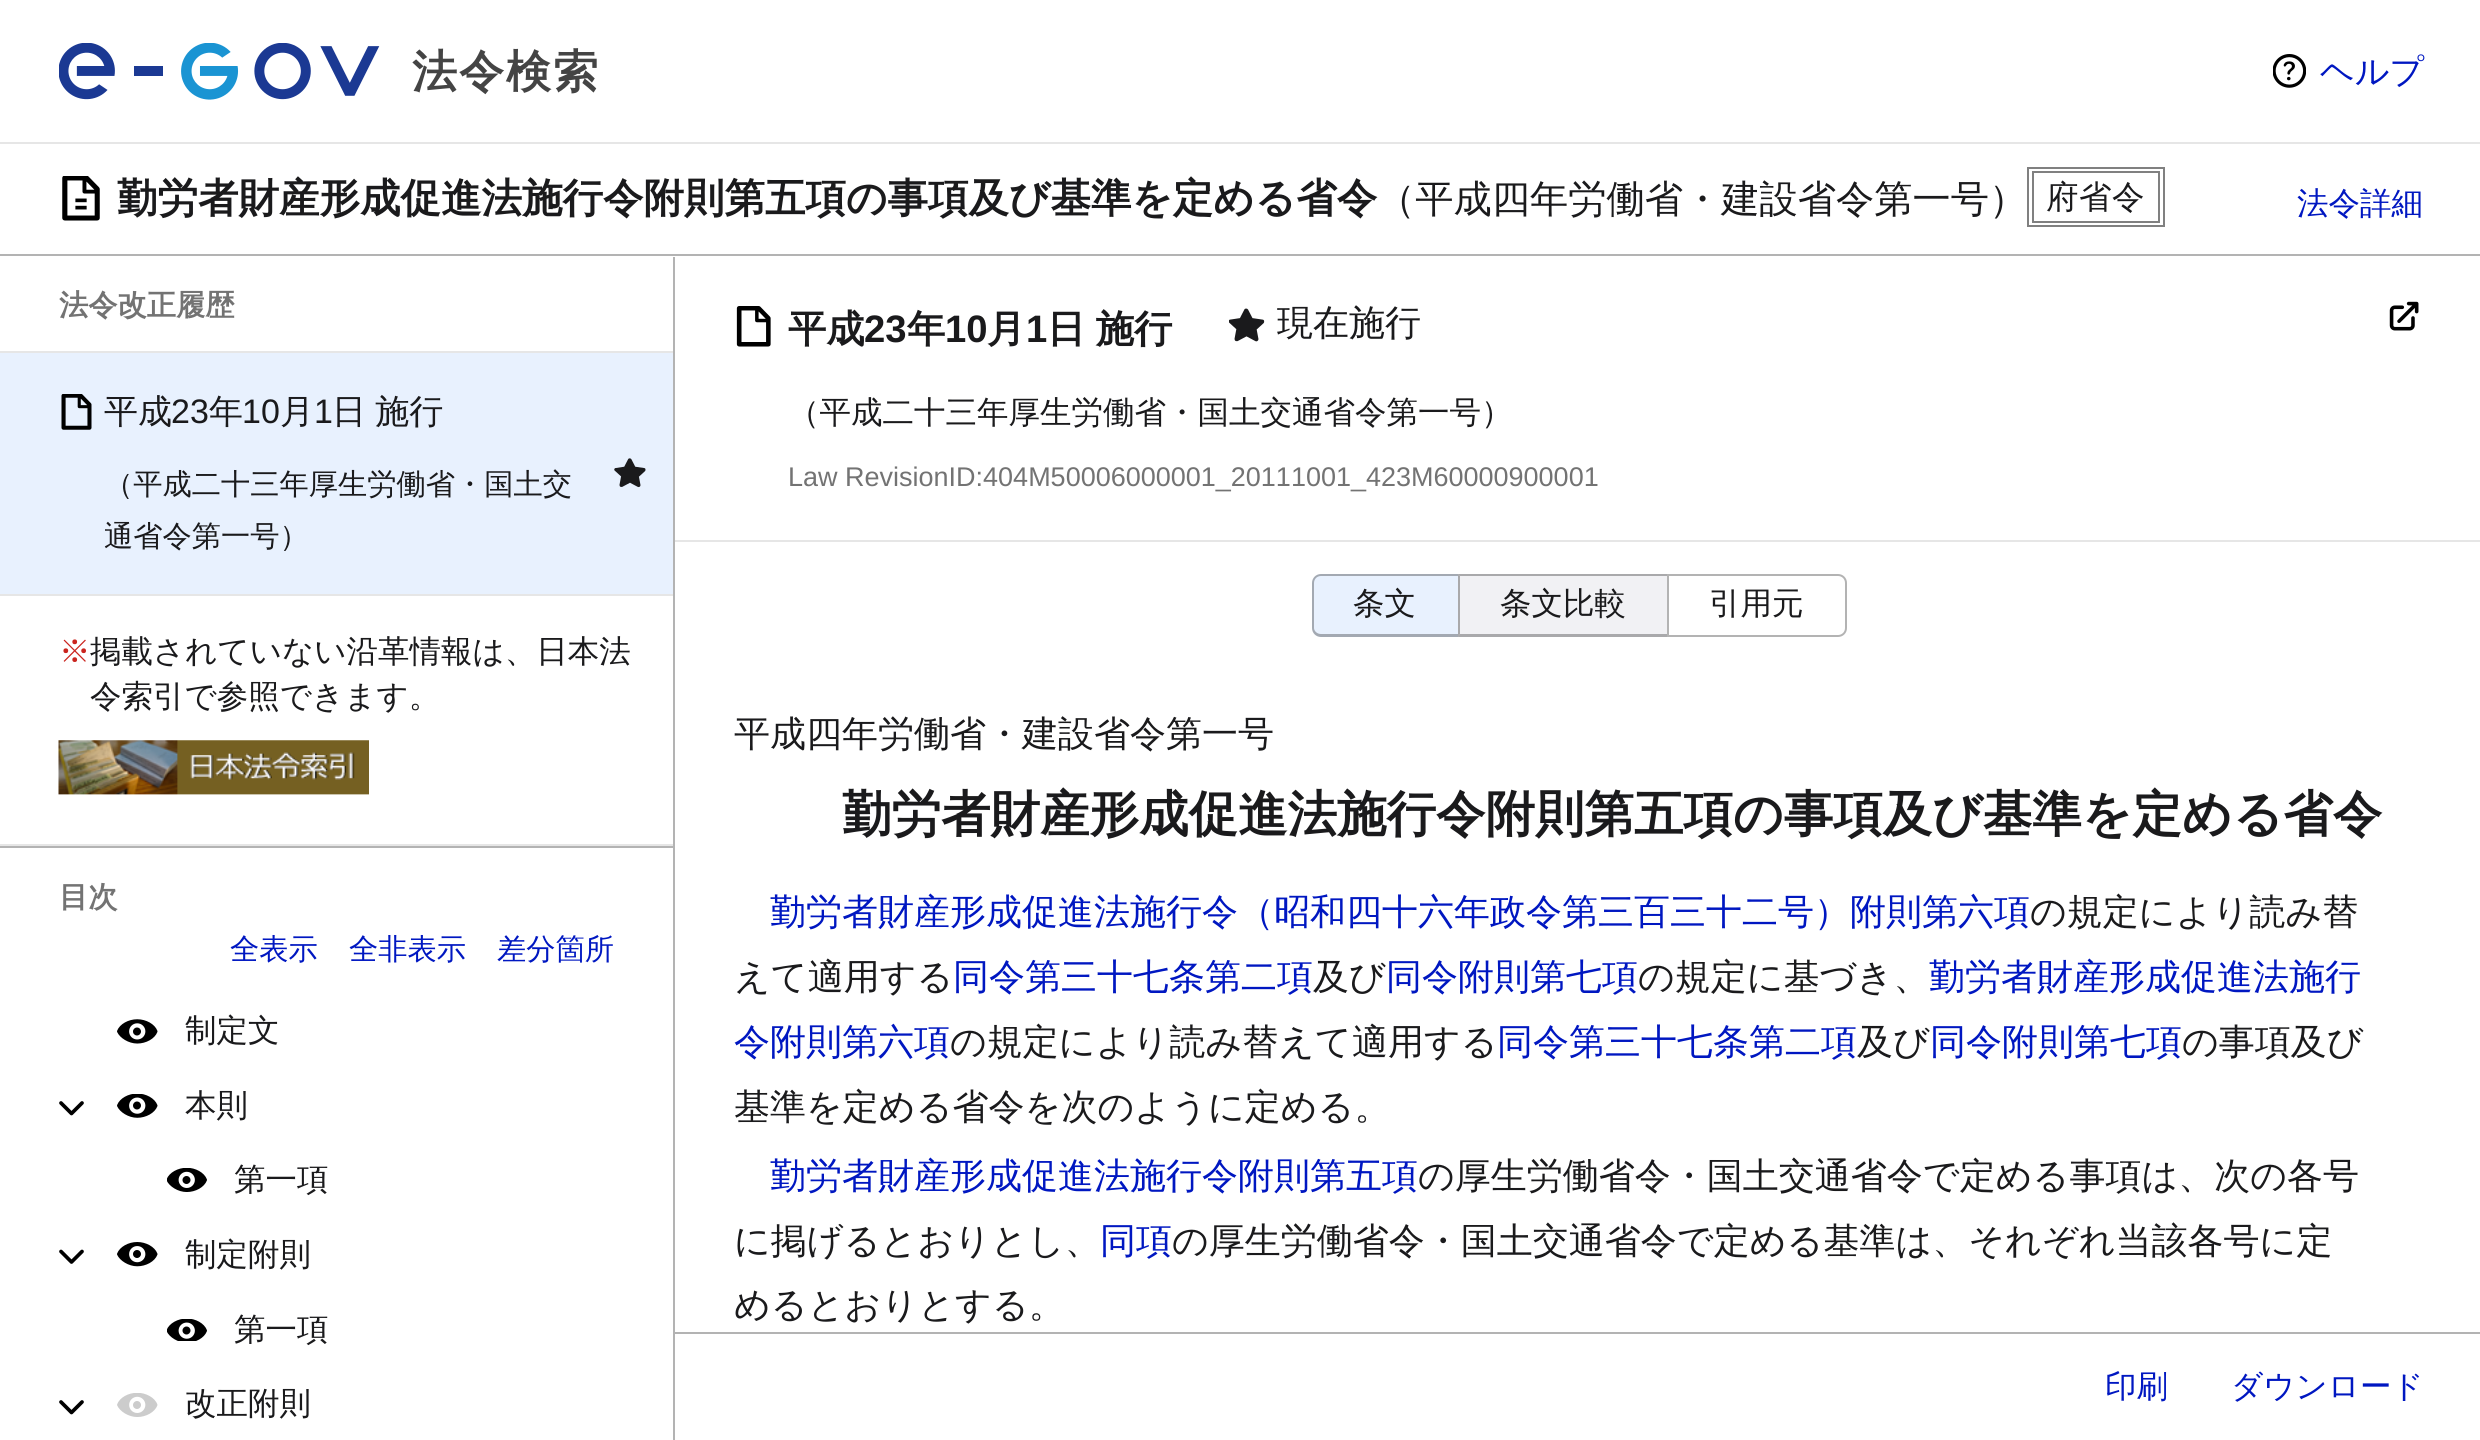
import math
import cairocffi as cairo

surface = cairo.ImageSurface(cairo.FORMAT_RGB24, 2480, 1440)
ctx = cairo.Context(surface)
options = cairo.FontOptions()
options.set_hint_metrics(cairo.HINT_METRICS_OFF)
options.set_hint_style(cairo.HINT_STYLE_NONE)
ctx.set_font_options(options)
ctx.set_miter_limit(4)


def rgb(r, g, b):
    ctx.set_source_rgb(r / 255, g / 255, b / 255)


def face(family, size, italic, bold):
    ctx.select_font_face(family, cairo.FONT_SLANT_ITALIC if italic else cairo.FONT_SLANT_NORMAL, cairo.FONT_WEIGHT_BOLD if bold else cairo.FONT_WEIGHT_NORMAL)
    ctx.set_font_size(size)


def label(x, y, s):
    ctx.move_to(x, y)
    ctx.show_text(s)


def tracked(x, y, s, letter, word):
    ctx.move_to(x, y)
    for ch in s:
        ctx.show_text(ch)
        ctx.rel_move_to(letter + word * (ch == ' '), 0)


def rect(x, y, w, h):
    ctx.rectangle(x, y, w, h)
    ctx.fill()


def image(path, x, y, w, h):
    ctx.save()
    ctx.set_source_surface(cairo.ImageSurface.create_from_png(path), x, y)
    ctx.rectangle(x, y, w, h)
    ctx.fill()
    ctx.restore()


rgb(255, 255, 255)
ctx.paint()
rgb(230, 230, 230)
rect(0, 142, 2480, 2)
image('image0.png', 59, 43, 321, 57)
face('WenQuanYi Zen Hei', 45, 0, 1)
rgb(68, 68, 68)
tracked(412, 87, '法令検索', 2, 0)
image('image1.png', 2273, 54, 33, 34)
face('WenQuanYi Zen Hei Medium', 34, 0, 0)
rgb(0, 23, 193)
label(2320, 83, 'ヘルプ')
rgb(179, 179, 179)
rect(0, 254, 2480, 2)
image('image2.png', 62, 176, 38, 45)
face('WenQuanYi Zen Hei', 40.5, 0, 1)
rgb(26, 26, 28)
label(117, 212, '勤労者財産形成促進法施行令附則第五項の事項及び基準を定める省令')
face('WenQuanYi Zen Hei Medium', 38.25, 0, 0)
label(1377, 212, '（平成四年労働省・建設省令第一号）')
ctx.rectangle(2028, 168, 136, 58)
rgb(128, 128, 128)
ctx.stroke()
ctx.rectangle(2033, 172, 126, 50)
ctx.stroke()
face('WenQuanYi Zen Hei Medium', 32.5, 0, 0)
rgb(26, 26, 28)
tracked(2046, 208, '府省令', 0.5, 0)
face('WenQuanYi Zen Hei Medium', 31.5, 0, 0)
rgb(0, 23, 193)
label(2297, 214, '法令詳細')
rgb(179, 179, 179)
rect(673, 257, 2, 1183)
rect(0, 846, 673, 2)
face('WenQuanYi Zen Hei', 29.25, 0, 1)
rgb(115, 115, 115)
label(59, 315, '法令改正履歴')
rgb(230, 230, 230)
rect(0, 351, 673, 2)
rgb(232, 241, 254)
rect(0, 353, 673, 241)
image('image3.png', 61, 394, 31, 36)
face('WenQuanYi Zen Hei Medium', 34, 0, 0)
rgb(26, 26, 28)
label(104, 423, '平成')
face('Liberation Sans', 34, 0, 0)
label(171, 423, '23')
face('WenQuanYi Zen Hei Medium', 34, 0, 0)
label(209, 423, '年')
face('Liberation Sans', 34, 0, 0)
label(242, 423, '10')
face('WenQuanYi Zen Hei Medium', 34, 0, 0)
label(280, 423, '月')
face('Liberation Sans', 34, 0, 0)
label(314, 423, '1')
face('WenQuanYi Zen Hei Medium', 34, 0, 0)
tracked(332, 423, '日 施行', 0, -1)
face('WenQuanYi Zen Hei Medium', 29.25, 0, 0)
label(104, 494, '（平成二十三年厚生労働省・国土交')
label(104, 546, '通省令第一号）')
image('image4.png', 614, 458, 32, 30)
rgb(230, 230, 230)
rect(0, 594, 673, 2)
rect(0, 844, 673, 2)
face('WenQuanYi Zen Hei Medium', 31.5, 0, 0)
rgb(202, 36, 30)
label(59, 662, '※')
rgb(26, 26, 28)
label(90, 662, '掲載されていない沿革情報は、日本法')
label(90, 707, '令索引で参照できます。')
image('image5.png', 58, 740, 311, 55)
face('WenQuanYi Zen Hei', 29.25, 0, 1)
rgb(115, 115, 115)
label(59, 907, '目次')
face('WenQuanYi Zen Hei Medium', 29.25, 0, 0)
rgb(0, 23, 193)
label(230, 959, '全表示')
label(349, 959, '全非表示')
label(497, 959, '差分箇所')
image('image6.png', 117, 1019, 41, 25)
face('WenQuanYi Zen Hei Medium', 31.5, 0, 0)
rgb(26, 26, 28)
label(185, 1041, '制定文')
ctx.new_path()
ctx.move_to(61, 1103)
ctx.line_to(71.5, 1113.5)
ctx.line_to(82, 1103)
rgb(0, 0, 0)
ctx.set_line_width(3.7)
ctx.set_line_cap(cairo.LINE_CAP_ROUND)
ctx.set_line_join(cairo.LINE_JOIN_ROUND)
ctx.stroke()
image('image7.png', 117, 1094, 41, 24)
rgb(26, 26, 28)
label(185, 1116, '本則')
image('image8.png', 167, 1168, 40, 24)
label(234, 1190, '第一項')
ctx.new_path()
ctx.move_to(61, 1251.5)
ctx.line_to(71.5, 1262)
ctx.line_to(82, 1251.5)
rgb(0, 0, 0)
ctx.stroke()
image('image9.png', 117, 1242, 41, 25)
rgb(26, 26, 28)
label(185, 1265, '制定附則')
image('image10.png', 167, 1319, 40, 22)
label(234, 1340, '第一項')
ctx.new_path()
ctx.move_to(61, 1402)
ctx.line_to(71.5, 1412.5)
ctx.line_to(82, 1402)
rgb(0, 0, 0)
ctx.stroke()
image('image11.png', 117, 1393, 41, 24)
rgb(26, 26, 28)
label(185, 1414, '改正附則')
rgb(230, 230, 230)
rect(675, 540, 1805, 2)
image('image12.png', 736, 306, 35, 41)
face('WenQuanYi Zen Hei', 38.25, 0, 1)
rgb(26, 26, 28)
label(788, 342, '平成')
face('Liberation Sans', 38.25, 0, 1)
label(864, 342, '23')
face('WenQuanYi Zen Hei', 38.25, 0, 1)
label(907, 342, '年')
face('Liberation Sans', 38.25, 0, 1)
label(945, 342, '10')
face('WenQuanYi Zen Hei', 38.25, 0, 1)
label(987, 342, '月')
face('Liberation Sans', 38.25, 0, 1)
label(1026, 342, '1')
face('WenQuanYi Zen Hei', 38.25, 0, 1)
tracked(1047, 342, '日 施行', 0, -1)
image('image13.png', 1229, 308, 36, 34)
face('WenQuanYi Zen Hei Medium', 36, 0, 0)
label(1277, 335, '現在施行')
image('image14.png', 2389, 301, 30, 30)
face('WenQuanYi Zen Hei Medium', 31.5, 0, 0)
label(788, 423, '（平成二十三年厚生労働省・国土交通省令第一号）')
face('Liberation Sans', 27, 0, 0)
rgb(115, 115, 115)
label(788, 486, 'Law RevisionID:404M50006000001_20111001_423M60000900001')
rgb(232, 241, 254)
ctx.new_path()
ctx.move_to(1321, 574)
ctx.line_to(1458, 574)
ctx.line_to(1458, 637)
ctx.line_to(1321, 637)
ctx.curve_to(1316, 637, 1312, 633, 1312, 628)
ctx.line_to(1312, 583)
ctx.curve_to(1312, 578, 1316, 574, 1321, 574)
ctx.close_path()
ctx.fill()
ctx.set_source_rgba(0, 0, 0, 0.3)
ctx.set_fill_rule(cairo.FILL_RULE_EVEN_ODD)
ctx.new_path()
ctx.move_to(1321, 574)
ctx.line_to(1458, 574)
ctx.line_to(1458, 637)
ctx.line_to(1321, 637)
ctx.curve_to(1316, 637, 1312, 633, 1312, 628)
ctx.line_to(1312, 583)
ctx.curve_to(1312, 578, 1316, 574, 1321, 574)
ctx.close_path()
ctx.move_to(1321, 576)
ctx.line_to(1458, 576)
ctx.line_to(1458, 634)
ctx.line_to(1321, 634)
ctx.curve_to(1317, 634, 1314, 631, 1314, 628)
ctx.line_to(1314, 583)
ctx.curve_to(1314, 579, 1317, 576, 1321, 576)
ctx.close_path()
ctx.fill()
face('WenQuanYi Zen Hei Medium', 31.5, 0, 0)
rgb(26, 26, 28)
label(1353, 614, '条文')
rgb(241, 241, 244)
rect(1458, 574, 209, 63)
rgb(169, 169, 171)
ctx.set_fill_rule(cairo.FILL_RULE_WINDING)
ctx.new_path()
ctx.move_to(1458, 574)
ctx.line_to(1667, 574)
ctx.line_to(1667, 576)
ctx.line_to(1460, 576)
ctx.close_path()
ctx.fill()
ctx.new_path()
ctx.move_to(1667, 637)
ctx.line_to(1458, 637)
ctx.line_to(1460, 634)
ctx.line_to(1667, 634)
ctx.close_path()
ctx.fill()
ctx.set_source_rgba(0, 0, 0, 0.3)
ctx.new_path()
ctx.move_to(1458, 637)
ctx.line_to(1458, 574)
ctx.line_to(1460, 576)
ctx.line_to(1460, 634)
ctx.close_path()
ctx.fill()
rgb(26, 26, 28)
label(1500, 614, '条文比較')
ctx.new_path()
ctx.move_to(1668, 575)
ctx.line_to(1838, 575)
ctx.curve_to(1842.5, 575, 1846, 578.5, 1846, 583)
ctx.line_to(1846, 628)
ctx.curve_to(1846, 632.5, 1842.5, 636, 1838, 636)
ctx.line_to(1668, 636)
ctx.close_path()
rgb(179, 179, 179)
ctx.set_line_width(2)
ctx.set_line_cap(cairo.LINE_CAP_BUTT)
ctx.set_line_join(cairo.LINE_JOIN_MITER)
ctx.stroke()
rgb(26, 26, 28)
label(1709, 614, '引用元')
face('WenQuanYi Zen Hei Medium', 36, 0, 0)
label(734, 746, '平成四年労働省・建設省令第一号')
face('WenQuanYi Zen Hei', 49.5, 0, 1)
label(842, 831, '勤労者財産形成促進法施行令附則第五項の事項及び基準を定める省令')
face('WenQuanYi Zen Hei Medium', 36, 0, 0)
rgb(0, 23, 193)
label(770, 924, '勤労者財産形成促進法施行令（昭和四十六年政令第三百三十二号）附則第六項')
rgb(26, 26, 28)
label(2030, 924, 'の規定により読み替')
label(734, 989, 'えて適用する')
rgb(0, 23, 193)
label(953, 989, '同令第三十七条第二項')
rgb(26, 26, 28)
label(1313, 989, '及び')
rgb(0, 23, 193)
label(1386, 989, '同令附則第七項')
rgb(26, 26, 28)
label(1638, 989, 'の規定に基づき、')
rgb(0, 23, 193)
label(1929, 989, '勤労者財産形成促進法施行')
label(734, 1054, '令附則第六項')
rgb(26, 26, 28)
label(950, 1054, 'の規定により読み替えて適用する')
rgb(0, 23, 193)
label(1497, 1054, '同令第三十七条第二項')
rgb(26, 26, 28)
label(1857, 1054, '及び')
rgb(0, 23, 193)
label(1930, 1054, '同令附則第七項')
rgb(26, 26, 28)
label(2182, 1054, 'の事項及び')
label(734, 1119, '基準を定める省令を次のように定める。')
rgb(0, 23, 193)
label(770, 1188, '勤労者財産形成促進法施行令附則第五項')
rgb(26, 26, 28)
label(1418, 1188, 'の厚生労働省令・国土交通省令で定める事項は、次の各号')
label(734, 1253, 'に掲げるとおりとし、')
rgb(0, 23, 193)
label(1100, 1253, '同項')
rgb(26, 26, 28)
label(1172, 1253, 'の厚生労働省令・国土交通省令で定める基準は、それぞれ当該各号に定')
label(734, 1317, 'めるとおりとする。')
rgb(179, 179, 179)
rect(675, 1332, 1805, 2)
face('WenQuanYi Zen Hei Medium', 31.5, 0, 0)
rgb(0, 23, 193)
label(2105, 1397, '印刷')
label(2231, 1397, 'ダウンロード')
surface.write_to_png('render.png')
